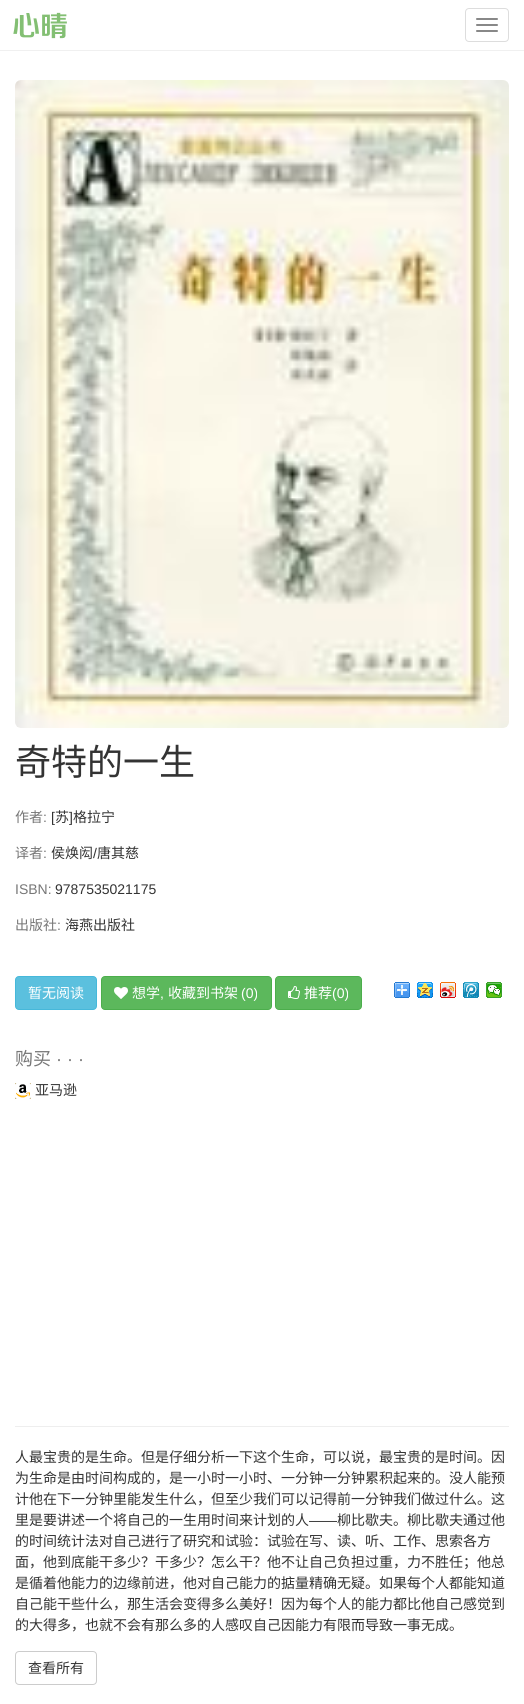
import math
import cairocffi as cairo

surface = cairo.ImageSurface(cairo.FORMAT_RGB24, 524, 1704)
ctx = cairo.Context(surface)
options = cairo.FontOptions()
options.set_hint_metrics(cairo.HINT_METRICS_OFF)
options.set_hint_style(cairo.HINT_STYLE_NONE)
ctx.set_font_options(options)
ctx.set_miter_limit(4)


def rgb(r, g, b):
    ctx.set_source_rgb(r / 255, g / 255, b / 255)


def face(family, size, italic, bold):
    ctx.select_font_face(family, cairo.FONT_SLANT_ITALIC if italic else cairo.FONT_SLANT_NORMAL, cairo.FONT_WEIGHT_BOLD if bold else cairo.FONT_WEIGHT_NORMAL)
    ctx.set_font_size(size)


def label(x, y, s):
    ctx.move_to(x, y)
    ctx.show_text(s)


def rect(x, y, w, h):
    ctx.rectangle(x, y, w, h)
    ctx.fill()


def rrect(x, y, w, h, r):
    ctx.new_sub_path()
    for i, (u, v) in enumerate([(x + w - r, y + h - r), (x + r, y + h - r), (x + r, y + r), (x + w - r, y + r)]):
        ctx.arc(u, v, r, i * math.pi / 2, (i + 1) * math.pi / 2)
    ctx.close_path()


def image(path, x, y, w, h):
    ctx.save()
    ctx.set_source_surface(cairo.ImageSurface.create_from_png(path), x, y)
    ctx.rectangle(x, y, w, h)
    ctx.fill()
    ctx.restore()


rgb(255, 255, 255)
ctx.paint()
rgb(240, 240, 240)
rect(0, 50, 524, 1)
image('image0.png', 13, 12, 54, 27)
rrect(465.5, 8.5, 43, 33, 3.5)
rgb(221, 221, 221)
ctx.set_line_width(1)
ctx.stroke()
rgb(136, 136, 136)
rrect(476, 18, 22, 2, 1)
ctx.fill()
rrect(476, 24, 22, 2, 1)
ctx.fill()
rrect(476, 30, 22, 2, 1)
ctx.fill()
image('image1.png', 15, 80, 494, 648)
face('Noto Sans CJK SC', 36, 0, 0)
rgb(51, 51, 51)
label(15, 775, '奇特的一生')
face('Noto Sans CJK SC', 14, 0, 0)
rgb(119, 119, 119)
label(15, 822, '作者')
face('Liberation Sans', 14, 0, 0)
label(43, 822, ':')
rgb(51, 51, 51)
label(51, 822, '[')
face('Noto Sans CJK SC', 14, 0, 0)
label(55, 822, '苏')
face('Liberation Sans', 14, 0, 0)
label(69, 822, ']')
face('Noto Sans CJK SC', 14, 0, 0)
label(73, 822, '格拉宁')
rgb(119, 119, 119)
label(15, 858, '译者')
face('Liberation Sans', 14, 0, 0)
label(43, 858, ':')
face('Noto Sans CJK SC', 14, 0, 0)
rgb(51, 51, 51)
label(51, 858, '侯焕闳')
face('Liberation Sans', 14, 0, 0)
label(93, 858, '/')
face('Noto Sans CJK SC', 14, 0, 0)
label(97, 858, '唐其慈')
face('Liberation Sans', 14, 0, 0)
rgb(119, 119, 119)
label(15, 894, 'ISBN:')
rgb(51, 51, 51)
label(55, 894, '9787535021175')
face('Noto Sans CJK SC', 14, 0, 0)
rgb(119, 119, 119)
label(15, 930, '出版社')
face('Liberation Sans', 14, 0, 0)
label(57, 930, ':')
face('Noto Sans CJK SC', 14, 0, 0)
rgb(51, 51, 51)
label(65, 930, '海燕出版社')
rgb(91, 192, 222)
rrect(15.5, 976.5, 81, 33, 3.5)
ctx.fill_preserve()
rgb(70, 184, 218)
ctx.stroke()
rgb(255, 255, 255)
label(28, 998, '暂无阅读')
rgb(92, 184, 92)
rrect(101.5, 976.5, 170, 33, 3.5)
ctx.fill_preserve()
rgb(76, 174, 76)
ctx.stroke()
image('image2.png', 114, 987, 14, 12)
rgb(255, 255, 255)
label(132, 998, '想学')
face('Liberation Sans', 14, 0, 0)
label(160, 998, ',')
face('Noto Sans CJK SC', 14, 0, 0)
label(168, 998, '收藏到书架')
face('Liberation Sans', 14, 0, 0)
label(241, 998, '(0)')
rgb(92, 184, 92)
rrect(275.5, 976.5, 86, 33, 3.5)
ctx.fill_preserve()
rgb(76, 174, 76)
ctx.stroke()
image('image3.png', 288, 986, 12, 13)
face('Noto Sans CJK SC', 14, 0, 0)
rgb(255, 255, 255)
label(304, 998, '推荐')
face('Liberation Sans', 14, 0, 0)
label(332, 998, '(0)')
image('image4.png', 394, 982, 16, 16)
image('image5.png', 417, 982, 16, 16)
image('image6.png', 440, 982, 16, 16)
image('image7.png', 463, 982, 16, 16)
image('image8.png', 486, 982, 16, 16)
face('Noto Sans CJK SC', 18, 0, 0)
rgb(119, 119, 119)
label(15, 1065, '购买')
face('Liberation Sans', 18, 0, 0)
label(56, 1065, '· · ·')
image('image9.png', 15, 1083, 16, 16)
face('Noto Sans CJK SC', 14, 0, 0)
rgb(51, 51, 51)
label(35, 1095, '亚马逊')
rgb(238, 238, 238)
rect(15, 1426, 494, 1)
rgb(51, 51, 51)
label(15, 1462, '人最宝贵的是生命。但是仔细分析一下这个生命，可以说，最宝贵的是时间。因')
label(15, 1483, '为生命是由时间构成的，是一小时一小时、一分钟一分钟累积起来的。没人能预')
label(15, 1504, '计他在下一分钟里能发生什么，但至少我们可以记得前一分钟我们做过什么。这')
label(15, 1525, '里是要讲述一个将自己的一生用时间来计划的人')
face('Liberation Sans', 14, 0, 0)
label(309, 1525, '——')
face('Noto Sans CJK SC', 14, 0, 0)
label(337, 1525, '柳比歇夫。柳比歇夫通过他')
label(15, 1546, '的时间统计法对自己进行了研究和试验：试验在写、读、听、工作、思索各方')
label(15, 1567, '面，他到底能干多少？干多少？怎么干？他不让自己负担过重，力不胜任；他总')
label(15, 1588, '是循着他能力的边缘前进，他对自己能力的掂量精确无疑。如果每个人都能知道')
label(15, 1609, '自己能干些什么，那生活会变得多么美好！因为每个人的能力都比他自己感觉到')
label(15, 1630, '的大得多，也就不会有那么多的人感叹自己因能力有限而导致一事无成。')
rrect(15.5, 1651.5, 81, 33, 3.5)
rgb(204, 204, 204)
ctx.stroke()
rgb(51, 51, 51)
label(28, 1673, '查看所有')
surface.write_to_png('render.png')
